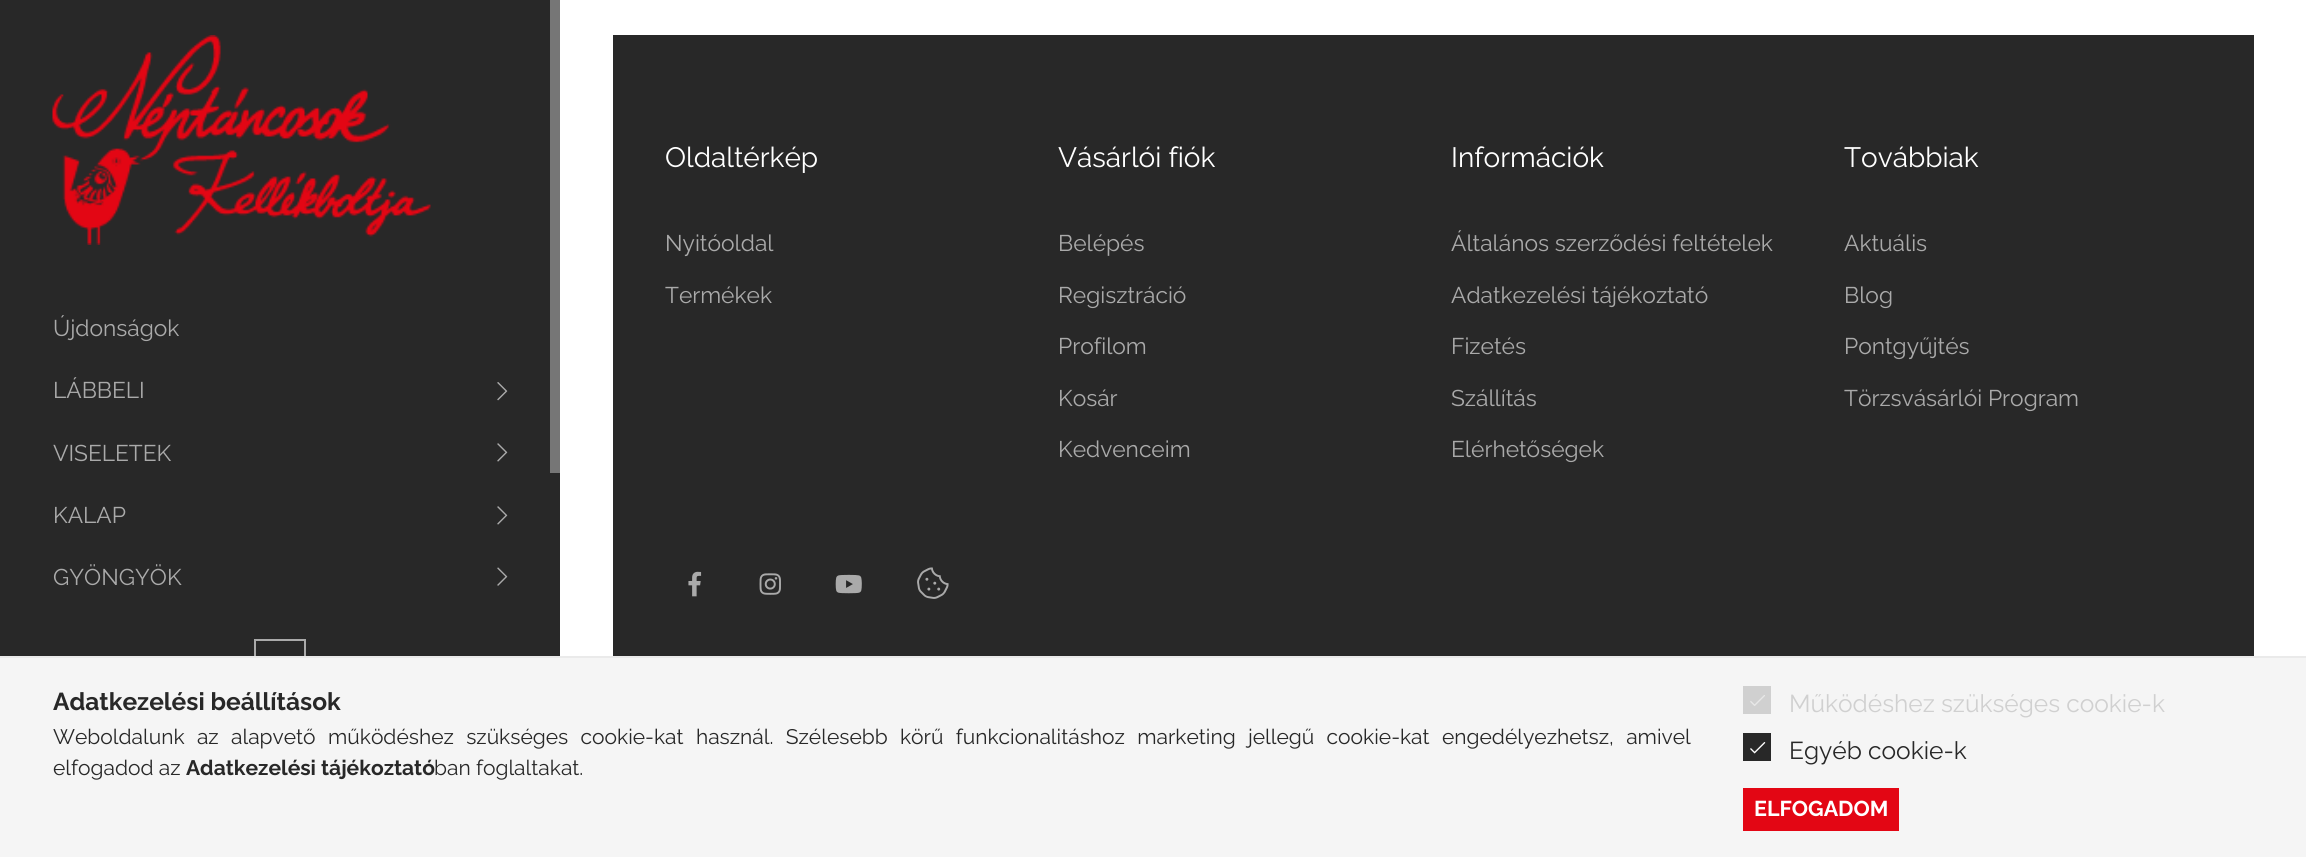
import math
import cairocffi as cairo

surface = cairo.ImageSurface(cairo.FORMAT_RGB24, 2306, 857)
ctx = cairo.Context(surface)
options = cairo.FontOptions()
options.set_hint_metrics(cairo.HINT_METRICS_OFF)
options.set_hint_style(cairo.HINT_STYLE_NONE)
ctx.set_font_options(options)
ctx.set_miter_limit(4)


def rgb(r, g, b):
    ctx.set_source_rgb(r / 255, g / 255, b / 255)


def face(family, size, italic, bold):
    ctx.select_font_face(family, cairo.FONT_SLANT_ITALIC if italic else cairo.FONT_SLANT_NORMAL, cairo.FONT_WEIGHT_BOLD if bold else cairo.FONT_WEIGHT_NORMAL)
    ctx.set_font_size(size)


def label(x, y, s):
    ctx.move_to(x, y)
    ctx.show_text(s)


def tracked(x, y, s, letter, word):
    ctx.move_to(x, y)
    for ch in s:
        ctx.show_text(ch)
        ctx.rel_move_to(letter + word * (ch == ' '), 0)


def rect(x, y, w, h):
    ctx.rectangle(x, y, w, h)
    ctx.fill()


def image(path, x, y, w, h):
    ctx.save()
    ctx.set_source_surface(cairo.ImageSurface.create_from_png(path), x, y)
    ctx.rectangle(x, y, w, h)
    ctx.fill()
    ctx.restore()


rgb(255, 255, 255)
ctx.paint()
rgb(40, 40, 40)
rect(0, 0, 560, 656)
image('image0.png', 52, 35, 379, 210)
face('Raleway', 22.75, 0, 0)
rgb(170, 170, 170)
label(53, 336, 'Újdonságok')
label(53, 398, 'LÁBBELI')
image('image1.png', 497, 382, 11, 19)
label(53, 461, 'VISELETEK')
image('image2.png', 497, 443, 11, 19)
label(53, 523, 'KALAP')
image('image2.png', 497, 506, 11, 19)
label(53, 585, 'GYÖNGYÖK')
image('image3.png', 497, 567, 11, 19)
ctx.rectangle(255, 640, 50, 50)
ctx.stroke()
rgb(118, 118, 118)
rect(550, 0, 10, 473)
rgb(40, 40, 40)
rect(613, 35, 1641, 621)
face('Raleway', 28, 0, 0)
rgb(255, 255, 255)
label(665, 167, 'Oldaltérkép')
face('Raleway', 22.75, 0, 0)
rgb(170, 170, 170)
label(665, 251, 'Nyitóoldal')
label(665, 303, 'Termékek')
face('Raleway', 28, 0, 0)
rgb(255, 255, 255)
label(1058, 167, 'Vásárlói fiók')
face('Raleway', 22.75, 0, 0)
rgb(170, 170, 170)
label(1058, 251, 'Belépés')
label(1058, 303, 'Regisztráció')
label(1058, 354, 'Profilom')
label(1058, 406, 'Kosár')
label(1058, 457, 'Kedvenceim')
face('Raleway', 28, 0, 0)
rgb(255, 255, 255)
label(1451, 167, 'Információk')
face('Raleway', 22.75, 0, 0)
rgb(170, 170, 170)
label(1451, 251, 'Általános szerződési feltételek')
label(1451, 303, 'Adatkezelési tájékoztató')
label(1451, 354, 'Fizetés')
label(1451, 406, 'Szállítás')
label(1451, 457, 'Elérhetőségek')
face('Raleway', 28, 0, 0)
rgb(255, 255, 255)
label(1844, 167, 'Továbbiak')
face('Raleway', 22.75, 0, 0)
rgb(170, 170, 170)
label(1844, 251, 'Aktuális')
label(1844, 303, 'Blog')
label(1844, 354, 'Pontgyűjtés')
label(1844, 406, 'Törzsvásárlói Program')
image('image4.png', 688, 571, 14, 26)
image('image5.png', 759, 573, 22, 22)
image('image6.png', 835, 574, 27, 20)
image('image7.png', 917, 567, 32, 32)
rgb(245, 245, 245)
rect(0, 658, 2306, 199)
rgb(234, 234, 234)
rect(0, 656, 2306, 2)
face('Raleway', 24.5, 0, 1)
rgb(40, 40, 40)
label(53, 710, 'Adatkezelési beállítások')
face('Raleway', 21, 0, 0)
tracked(53, 744, 'Weboldalunk az alapvető működéshez szükséges cookie-kat használ. Szélesebb körű funkcionalitáshoz marketing jellegű cookie-kat engedélyezhetsz, amivel', 0, 7)
label(53, 775, 'elfogadod az')
face('Raleway', 21, 0, 1)
label(186, 775, 'Adatkezelési tájékoztató')
face('Raleway', 21, 0, 0)
label(434, 775, 'ban foglaltakat.')
rgb(208, 208, 208)
rect(1743, 686, 28, 28)
image('image8.png', 1750, 695, 15, 11)
face('Raleway', 24.5, 0, 0)
label(1789, 712, 'Működéshez szükséges cookie-k')
rgb(40, 40, 40)
rect(1743, 733, 28, 28)
image('image9.png', 1750, 742, 16, 12)
label(1789, 759, 'Egyéb cookie-k')
rgb(227, 6, 20)
rect(1743, 788, 156, 43)
face('Raleway', 21.5, 0, 1)
rgb(255, 255, 255)
label(1754, 816, 'ELFOGADOM')
surface.write_to_png('render.png')
